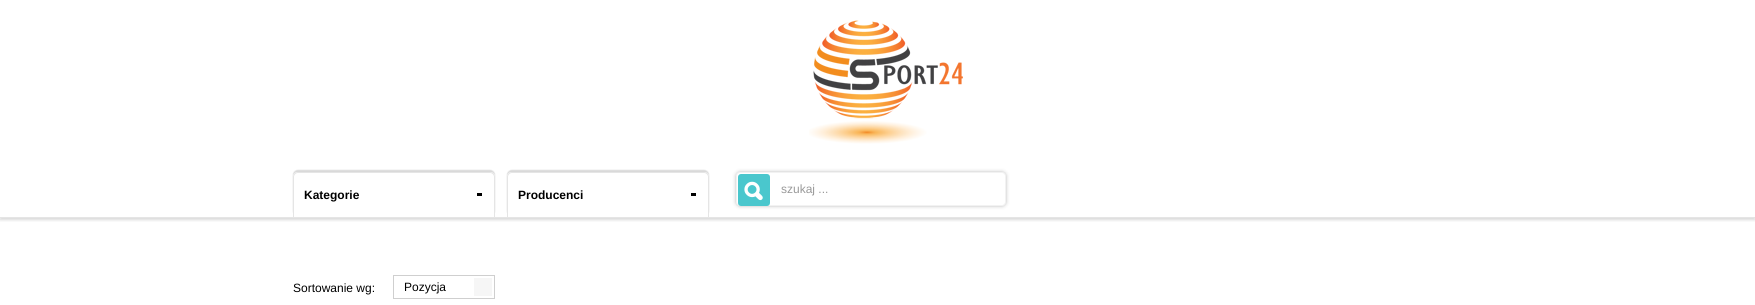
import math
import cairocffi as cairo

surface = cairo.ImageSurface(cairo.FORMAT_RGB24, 1755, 305)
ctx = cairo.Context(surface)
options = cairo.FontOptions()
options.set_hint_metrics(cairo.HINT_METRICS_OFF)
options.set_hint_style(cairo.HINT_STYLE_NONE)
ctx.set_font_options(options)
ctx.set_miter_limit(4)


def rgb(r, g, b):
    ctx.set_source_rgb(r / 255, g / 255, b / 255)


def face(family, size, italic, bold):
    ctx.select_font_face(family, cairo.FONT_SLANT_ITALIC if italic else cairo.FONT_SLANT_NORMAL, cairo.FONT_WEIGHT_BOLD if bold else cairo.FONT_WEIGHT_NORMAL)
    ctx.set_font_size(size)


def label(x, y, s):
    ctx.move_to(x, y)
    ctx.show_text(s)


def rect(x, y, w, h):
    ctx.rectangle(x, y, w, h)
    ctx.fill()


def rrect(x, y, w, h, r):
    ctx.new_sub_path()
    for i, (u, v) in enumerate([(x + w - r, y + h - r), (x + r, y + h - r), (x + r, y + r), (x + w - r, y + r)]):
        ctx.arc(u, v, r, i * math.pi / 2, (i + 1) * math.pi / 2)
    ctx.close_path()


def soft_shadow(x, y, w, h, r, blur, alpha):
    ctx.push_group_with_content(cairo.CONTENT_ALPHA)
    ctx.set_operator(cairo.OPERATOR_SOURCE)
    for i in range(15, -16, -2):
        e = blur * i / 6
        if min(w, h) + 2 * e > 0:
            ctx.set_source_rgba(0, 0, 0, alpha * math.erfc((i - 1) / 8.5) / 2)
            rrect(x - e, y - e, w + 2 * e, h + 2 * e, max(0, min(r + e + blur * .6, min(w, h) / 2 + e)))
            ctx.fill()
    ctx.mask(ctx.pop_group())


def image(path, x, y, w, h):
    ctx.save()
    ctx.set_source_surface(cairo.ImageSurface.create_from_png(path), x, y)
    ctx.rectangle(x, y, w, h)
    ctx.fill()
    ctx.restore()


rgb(255, 255, 255)
ctx.paint()
image('image0.png', 809, 20, 154, 124)
ctx.save()
ctx.rectangle(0, 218, 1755, 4)
ctx.clip()
rgb(0, 0, 0)
soft_shadow(0, 214, 1755, 6, 0, 1.5, 0.15)
ctx.restore()
rgb(229, 229, 229)
rect(0, 217, 1755, 1)
rgb(0, 0, 0)
soft_shadow(293, 170, 202, 46, 5, 0.5, 0.15)
rgb(255, 255, 255)
ctx.new_path()
ctx.move_to(298, 172)
ctx.line_to(490, 172)
ctx.curve_to(493, 172, 495, 174, 495, 177)
ctx.line_to(495, 218)
ctx.line_to(293, 218)
ctx.line_to(293, 177)
ctx.curve_to(293, 174, 295, 172, 298, 172)
ctx.close_path()
ctx.fill()
rgb(0, 0, 0)
rect(477, 193, 5, 3)
ctx.new_path()
ctx.move_to(298, 172.5)
ctx.line_to(490, 172.5)
ctx.curve_to(492.5, 172.5, 494.5, 174.5, 494.5, 177)
ctx.line_to(494.5, 217.5)
ctx.line_to(293.5, 217.5)
ctx.line_to(293.5, 177)
ctx.curve_to(293.5, 174.5, 295.5, 172.5, 298, 172.5)
ctx.close_path()
rgb(229, 229, 229)
ctx.set_line_width(1)
ctx.stroke()
face('Liberation Sans', 12, 0, 1)
rgb(0, 0, 0)
label(304, 199, 'Kategorie')
rgb(0, 0, 0)
soft_shadow(507, 170, 202, 46, 5, 0.5, 0.15)
rgb(255, 255, 255)
ctx.new_path()
ctx.move_to(512, 172)
ctx.line_to(704, 172)
ctx.curve_to(707, 172, 709, 174, 709, 177)
ctx.line_to(709, 218)
ctx.line_to(507, 218)
ctx.line_to(507, 177)
ctx.curve_to(507, 174, 509, 172, 512, 172)
ctx.close_path()
ctx.fill()
rgb(0, 0, 0)
rect(691, 193, 5, 3)
ctx.new_path()
ctx.move_to(512, 172.5)
ctx.line_to(704, 172.5)
ctx.curve_to(706.5, 172.5, 708.5, 174.5, 708.5, 177)
ctx.line_to(708.5, 217.5)
ctx.line_to(507.5, 217.5)
ctx.line_to(507.5, 177)
ctx.curve_to(507.5, 174.5, 509.5, 172.5, 512, 172.5)
ctx.close_path()
rgb(229, 229, 229)
ctx.stroke()
rgb(0, 0, 0)
label(518, 199, 'Producenci')
rgb(0, 0, 0)
soft_shadow(736, 172, 270, 34, 4, 2, 0.27)
rgb(255, 255, 255)
rrect(736.5, 172.5, 269, 33, 3.5)
ctx.fill_preserve()
rgb(242, 242, 242)
ctx.stroke()
rgb(74, 199, 205)
rrect(738, 174, 32, 32, 3)
ctx.fill()
image('image1.png', 744, 181, 19, 20)
face('Liberation Sans', 12, 0, 0)
rgb(153, 153, 153)
label(781, 193, 'szukaj ...')
rgb(0, 0, 0)
label(293, 292, 'Sortowanie wg:')
ctx.rectangle(393.5, 275.5, 101, 23)
rgb(207, 207, 207)
ctx.stroke()
rgb(0, 0, 0)
label(404, 291, 'Pozycja')
rgb(246, 246, 246)
rect(474, 278, 18, 18)
surface.write_to_png('render.png')
